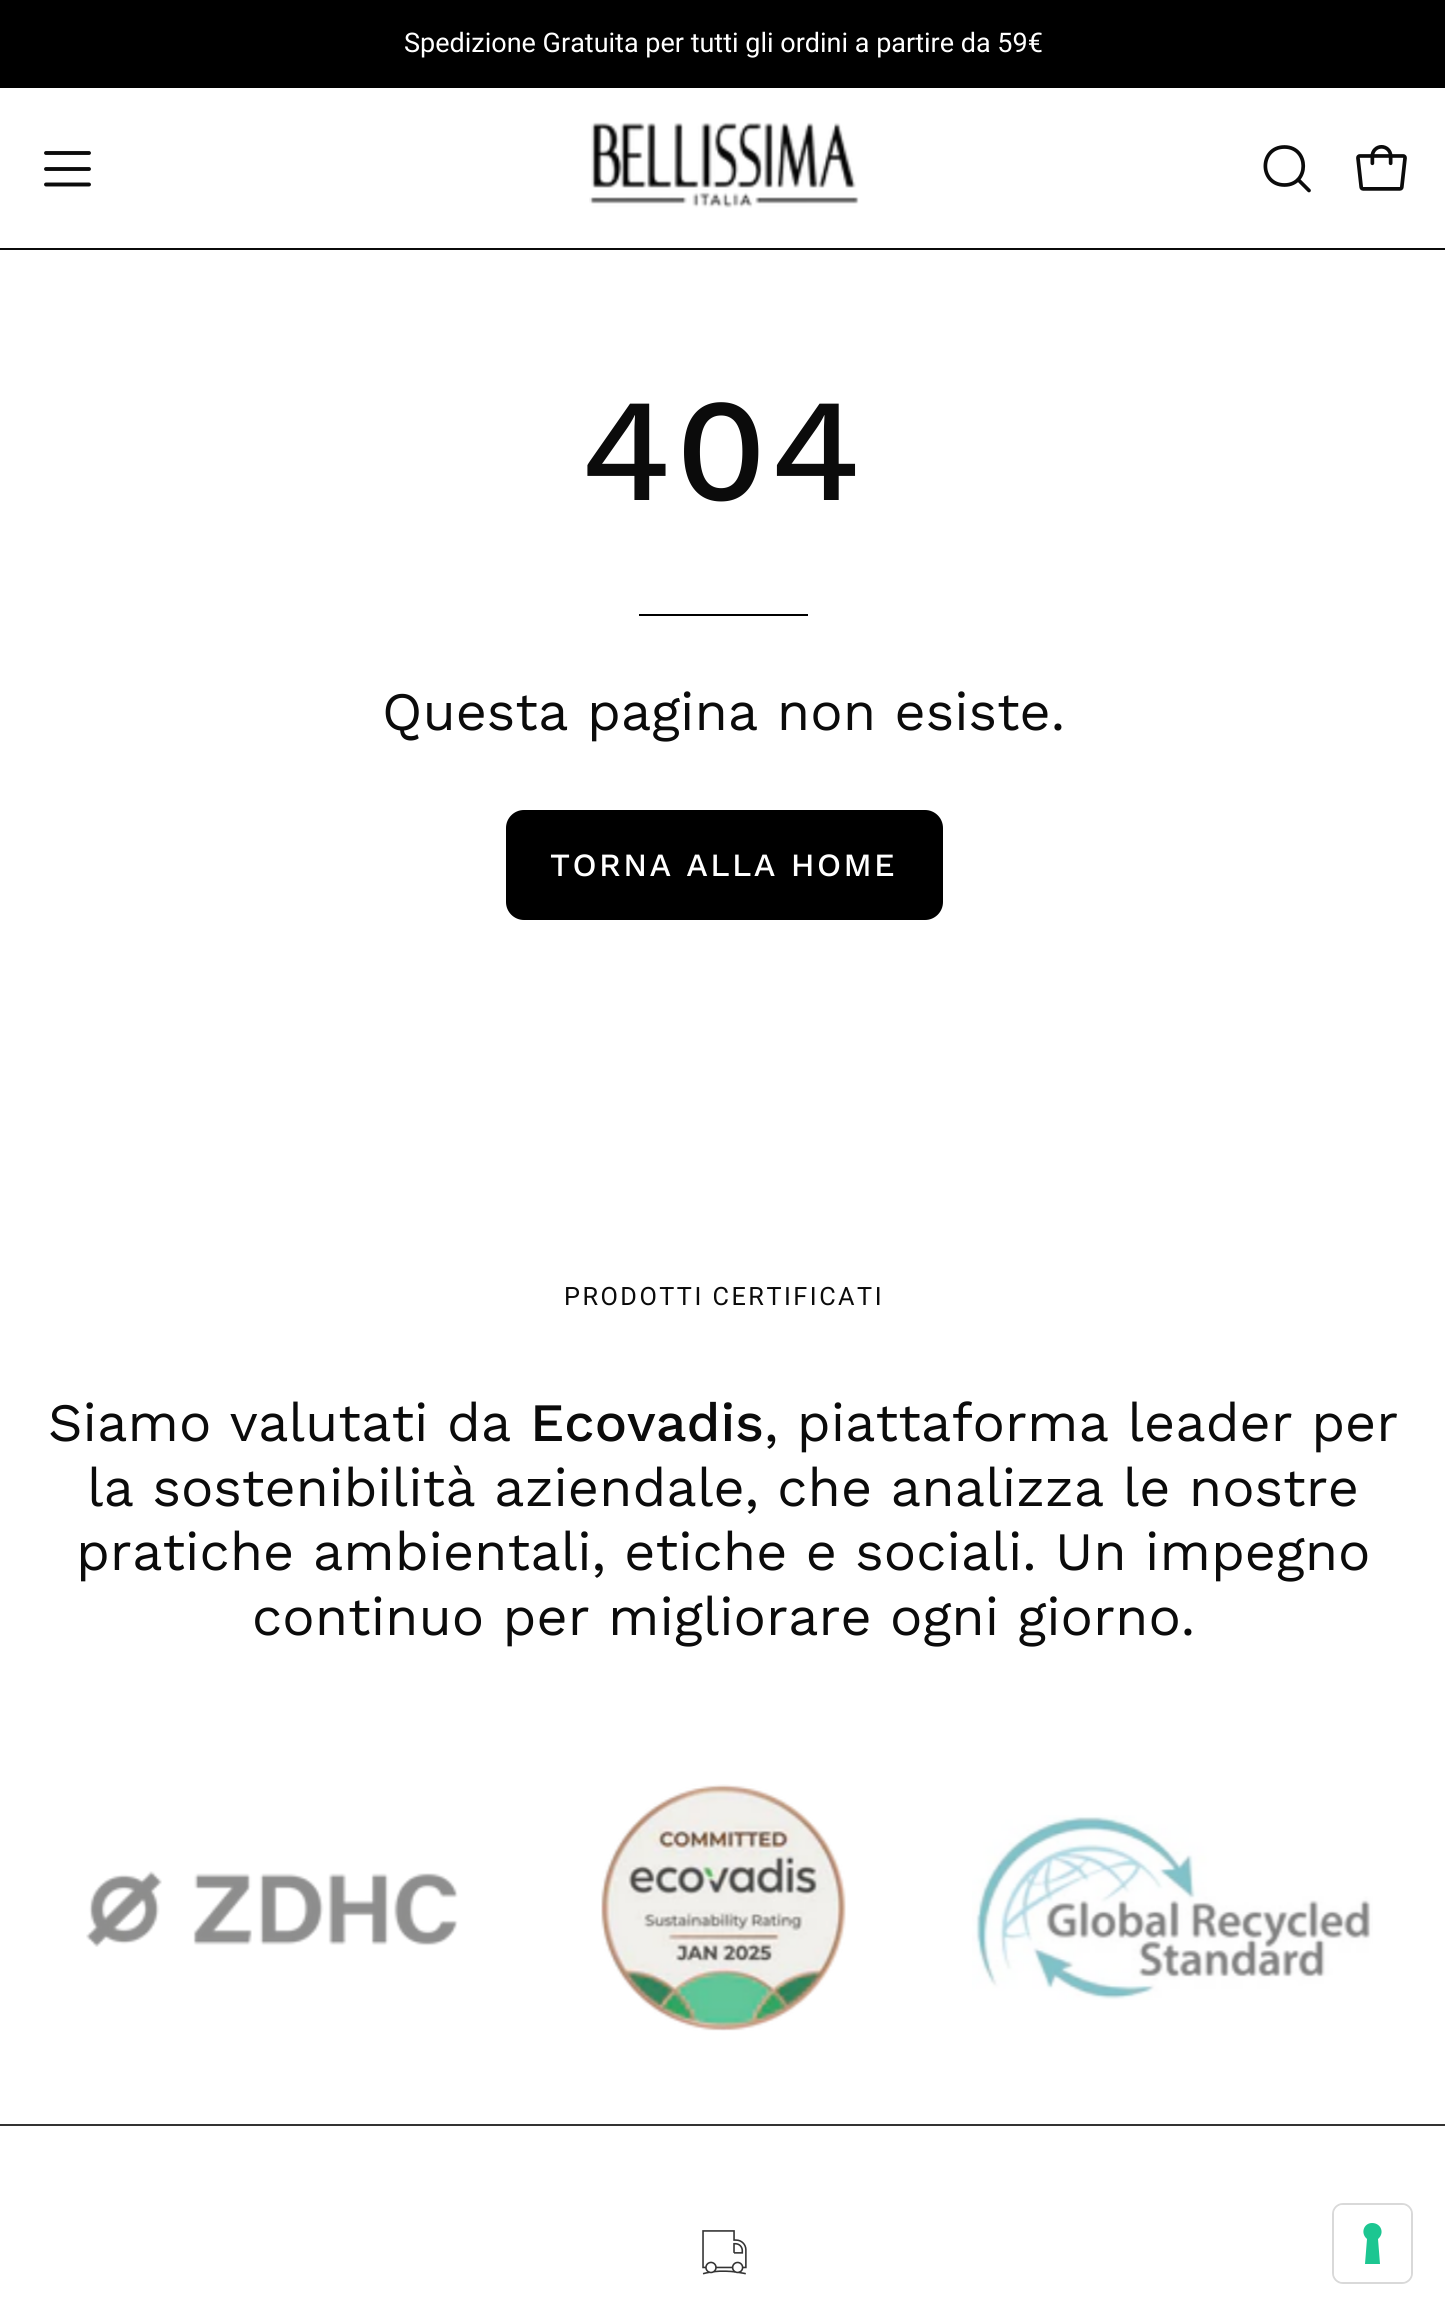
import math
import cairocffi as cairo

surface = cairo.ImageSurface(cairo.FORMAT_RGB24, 1445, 2317)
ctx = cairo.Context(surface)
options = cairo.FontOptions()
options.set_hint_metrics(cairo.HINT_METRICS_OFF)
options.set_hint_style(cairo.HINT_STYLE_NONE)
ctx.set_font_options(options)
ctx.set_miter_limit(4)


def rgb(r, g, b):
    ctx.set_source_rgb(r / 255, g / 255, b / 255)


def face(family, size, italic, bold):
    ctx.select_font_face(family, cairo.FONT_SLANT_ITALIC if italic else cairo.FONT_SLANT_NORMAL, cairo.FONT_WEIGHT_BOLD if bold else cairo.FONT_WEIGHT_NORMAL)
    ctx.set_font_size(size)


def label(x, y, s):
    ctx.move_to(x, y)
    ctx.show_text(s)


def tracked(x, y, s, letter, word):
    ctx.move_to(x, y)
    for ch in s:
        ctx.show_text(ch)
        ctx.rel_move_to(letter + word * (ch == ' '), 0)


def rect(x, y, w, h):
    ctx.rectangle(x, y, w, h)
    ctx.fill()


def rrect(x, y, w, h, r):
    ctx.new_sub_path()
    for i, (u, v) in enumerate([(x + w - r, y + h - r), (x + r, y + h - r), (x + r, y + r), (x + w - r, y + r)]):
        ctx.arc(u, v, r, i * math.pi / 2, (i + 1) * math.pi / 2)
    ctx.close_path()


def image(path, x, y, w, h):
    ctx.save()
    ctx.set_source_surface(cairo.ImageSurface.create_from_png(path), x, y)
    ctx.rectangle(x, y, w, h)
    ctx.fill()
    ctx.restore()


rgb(255, 255, 255)
ctx.paint()
rgb(0, 0, 0)
rect(0, 0, 1445, 88)
face('Roboto', 27, 0, 0)
rgb(255, 255, 255)
label(404, 52, 'Spedizione Gratuita per tutti gli ordini a partire da 59€')
ctx.new_path()
ctx.move_to(46, 169)
ctx.line_to(89, 169)
ctx.move_to(46, 153)
ctx.line_to(89, 153)
ctx.move_to(46, 184.5)
ctx.line_to(89, 184.5)
rgb(11, 11, 11)
ctx.set_line_width(3.9)
ctx.set_line_cap(cairo.LINE_CAP_ROUND)
ctx.set_line_join(cairo.LINE_JOIN_ROUND)
ctx.stroke()
image('image0.png', 589, 122, 270, 86)
ctx.new_path()
ctx.move_to(1284.5, 185)
ctx.curve_to(1309.5, 185, 1309.5, 147, 1284.5, 147)
ctx.curve_to(1259, 147, 1259, 185, 1284.5, 185)
ctx.close_path()
ctx.move_to(1298, 179.5)
ctx.line_to(1309, 190.5)
ctx.set_line_width(3.7)
ctx.stroke()
image('image1.png', 1356, 145, 51, 46)
ctx.new_path()
ctx.move_to(0, 248)
ctx.line_to(0, 250)
ctx.line_to(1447, 250)
ctx.line_to(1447, 90)
ctx.line_to(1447, 248)
ctx.close_path()
ctx.fill()
face('Work Sans Medium', 146, 0, 0)
tracked(581, 500, '404', 3.5, 0)
rgb(0, 0, 0)
rect(639, 614, 169, 2)
face('Work Sans', 54, 0, 0)
rgb(11, 11, 11)
label(382, 730, 'Questa pagina non esiste.')
rgb(0, 0, 0)
rrect(506, 810, 437, 110, 18)
ctx.fill()
face('Work Sans Medium', 32.4, 0, 0)
rgb(255, 255, 255)
tracked(550, 876, 'TORNA ALLA HOME', 2.4, 0)
face('Roboto', 25.25, 0, 0)
rgb(11, 11, 11)
tracked(564, 1305, 'PRODOTTI CERTIFICATI', 2.5, 0)
face('Work Sans', 54, 0, 0)
label(48, 1441, 'Siamo valutati da')
face('Work Sans Medium', 54, 0, 0)
label(530, 1441, 'Ecovadis')
face('Work Sans', 54, 0, 0)
label(764, 1441, ', piattaforma leader per')
label(87, 1506, 'la sostenibilità aziendale, che analizza le nostre')
label(76, 1570, 'pratiche ambientali, etiche e sociali. Un impegno')
label(252, 1635, 'continuo per migliorare ogni giorno.')
image('image2.png', 86, 1871, 372, 76)
image('image3.png', 601, 1784, 245, 247)
image('image4.png', 972, 1815, 401, 185)
rgb(51, 51, 51)
rect(0, 2124, 1445, 2)
image('image5.png', 702, 2230, 45, 45)
rrect(1333, 2204, 79, 79, 10)
rgb(217, 217, 217)
ctx.set_line_width(2)
ctx.set_line_cap(cairo.LINE_CAP_BUTT)
ctx.set_line_join(cairo.LINE_JOIN_MITER)
ctx.stroke()
rgb(255, 255, 255)
rrect(1334, 2205, 77, 77, 9)
ctx.fill()
rgb(28, 198, 145)
ctx.set_fill_rule(cairo.FILL_RULE_EVEN_ODD)
ctx.new_path()
ctx.move_to(1372, 2223)
ctx.curve_to(1381, 2223, 1385, 2233, 1378, 2239)
ctx.line_to(1380, 2264)
ctx.line_to(1365, 2264)
ctx.line_to(1367, 2239)
ctx.curve_to(1360, 2233, 1364, 2223, 1372, 2223)
ctx.close_path()
ctx.fill()
surface.write_to_png('render.png')
